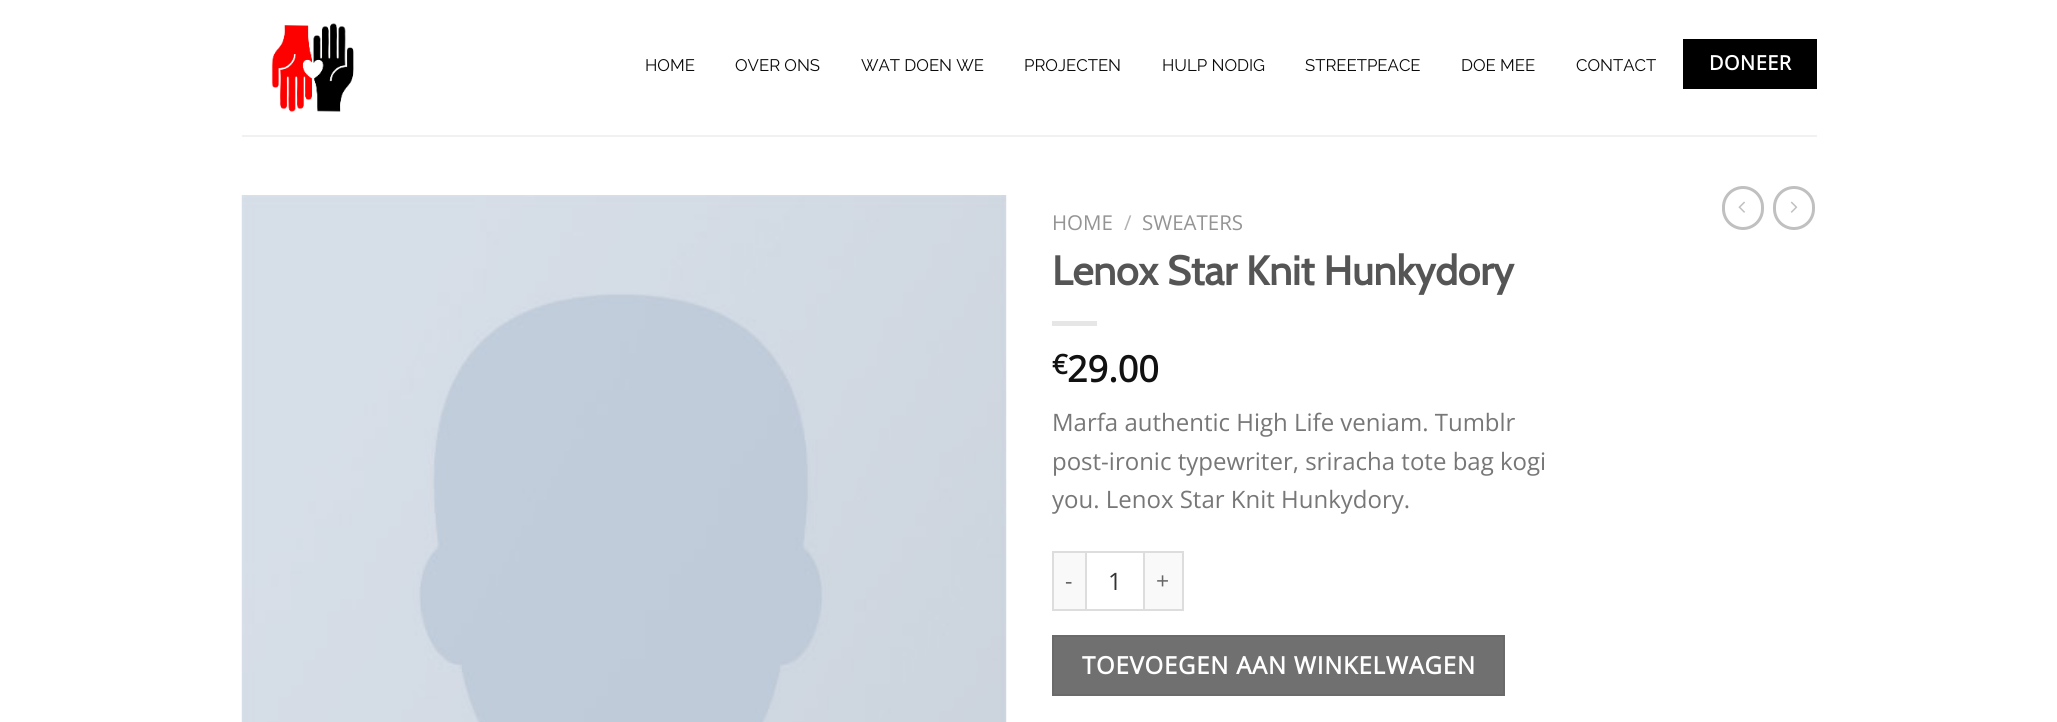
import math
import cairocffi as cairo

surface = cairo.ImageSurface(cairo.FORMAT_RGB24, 2057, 722)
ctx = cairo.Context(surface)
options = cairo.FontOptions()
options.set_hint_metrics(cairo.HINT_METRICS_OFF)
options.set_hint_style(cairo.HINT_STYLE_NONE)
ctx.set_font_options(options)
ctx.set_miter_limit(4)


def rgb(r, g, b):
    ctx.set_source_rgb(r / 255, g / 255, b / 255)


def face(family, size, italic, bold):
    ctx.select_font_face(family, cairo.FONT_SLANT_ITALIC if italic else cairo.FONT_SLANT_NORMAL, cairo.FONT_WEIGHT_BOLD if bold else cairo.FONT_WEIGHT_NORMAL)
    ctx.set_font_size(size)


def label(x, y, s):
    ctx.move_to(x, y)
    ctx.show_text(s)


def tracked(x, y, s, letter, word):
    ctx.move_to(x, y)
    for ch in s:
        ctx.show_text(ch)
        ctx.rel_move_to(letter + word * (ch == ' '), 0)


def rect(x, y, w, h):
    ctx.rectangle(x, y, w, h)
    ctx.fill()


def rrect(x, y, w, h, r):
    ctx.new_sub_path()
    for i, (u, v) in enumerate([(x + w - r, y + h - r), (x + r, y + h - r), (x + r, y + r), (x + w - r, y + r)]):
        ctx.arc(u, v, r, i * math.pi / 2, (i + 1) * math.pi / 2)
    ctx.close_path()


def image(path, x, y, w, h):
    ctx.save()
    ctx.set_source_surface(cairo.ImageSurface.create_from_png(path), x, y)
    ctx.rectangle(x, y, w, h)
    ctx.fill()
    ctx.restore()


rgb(255, 255, 255)
ctx.paint()
image('image0.png', 271, 23, 83, 89)
face('Raleway Thin', 16.75, 0, 0)
rgb(10, 10, 10)
label(645, 71, 'HOME')
label(735, 71, 'OVER ONS')
label(861, 71, 'WAT DOEN WE')
label(1024, 71, 'PROJECTEN')
label(1162, 71, 'HULP NODIG')
label(1305, 71, 'STREETPEACE')
label(1461, 71, 'DOE MEE')
label(1576, 71, 'CONTACT')
rgb(0, 0, 0)
rect(1683, 39, 134, 50)
face('Open Sans', 20, 0, 1)
rgb(255, 255, 255)
tracked(1709, 70, 'DONEER', 0.5, 0)
rgb(241, 241, 241)
rect(242, 135, 1575, 2)
image('image1.png', 241, 195, 766, 527)
face('Open Sans', 20.5, 0, 0)
rgb(148, 148, 148)
label(1052, 230, 'HOME')
rgb(178, 178, 178)
label(1124, 230, '/')
rgb(148, 148, 148)
label(1142, 230, 'SWEATERS')
face('Cabin', 40.75, 0, 1)
rgb(85, 85, 85)
label(1052, 285, 'Lenox Star Knit Hunkydory')
rgb(230, 230, 230)
rect(1052, 321, 45, 5)
face('Open Sans', 27, 0, 1)
rgb(17, 17, 17)
label(1052, 374, '€')
face('Open Sans', 36, 0, 1)
label(1067, 382, '29.00')
face('Open Sans', 24, 0, 0)
rgb(119, 119, 119)
label(1052, 431, 'Marfa authentic High Life veniam. Tumblr')
label(1052, 470, 'post-ironic typewriter, sriracha tote bag kogi')
label(1052, 508, 'you. Lenox Star Knit Hunkydory.')
rgb(249, 249, 249)
rect(1054, 553, 31, 56)
rgb(221, 221, 221)
rect(1052, 551, 33, 2)
rect(1052, 609, 33, 2)
rect(1052, 551, 2, 60)
face('Open Sans', 23, 0, 0)
rgb(102, 102, 102)
tracked(1065, 589, '-', 1, 0)
ctx.rectangle(1086, 552, 58, 58)
rgb(221, 221, 221)
ctx.stroke()
face('Open Sans', 24, 0, 0)
rgb(51, 51, 51)
label(1108, 590, '1')
rgb(249, 249, 249)
rect(1145, 553, 37, 56)
rgb(221, 221, 221)
rect(1145, 551, 39, 2)
rect(1182, 551, 2, 60)
rect(1145, 609, 39, 2)
face('Open Sans', 23, 0, 0)
rgb(102, 102, 102)
tracked(1156, 589, '+', 1, 0)
rgb(112, 112, 112)
ctx.rectangle(1053, 636, 451, 59)
ctx.fill_preserve()
rgb(106, 106, 106)
ctx.stroke()
face('Open Sans', 24, 0, 1)
rgb(255, 255, 255)
tracked(1082, 674, 'TOEVOEGEN AAN WINKELWAGEN', 0.75, 0)
rrect(1723.5, 187.5, 39, 41, 19.5)
rgb(192, 192, 192)
ctx.set_line_width(3)
ctx.stroke()
image('image2.png', 1738, 201, 7, 12)
rrect(1774.5, 187.5, 39, 41, 19.5)
ctx.stroke()
image('image3.png', 1790, 201, 8, 12)
surface.write_to_png('render.png')
